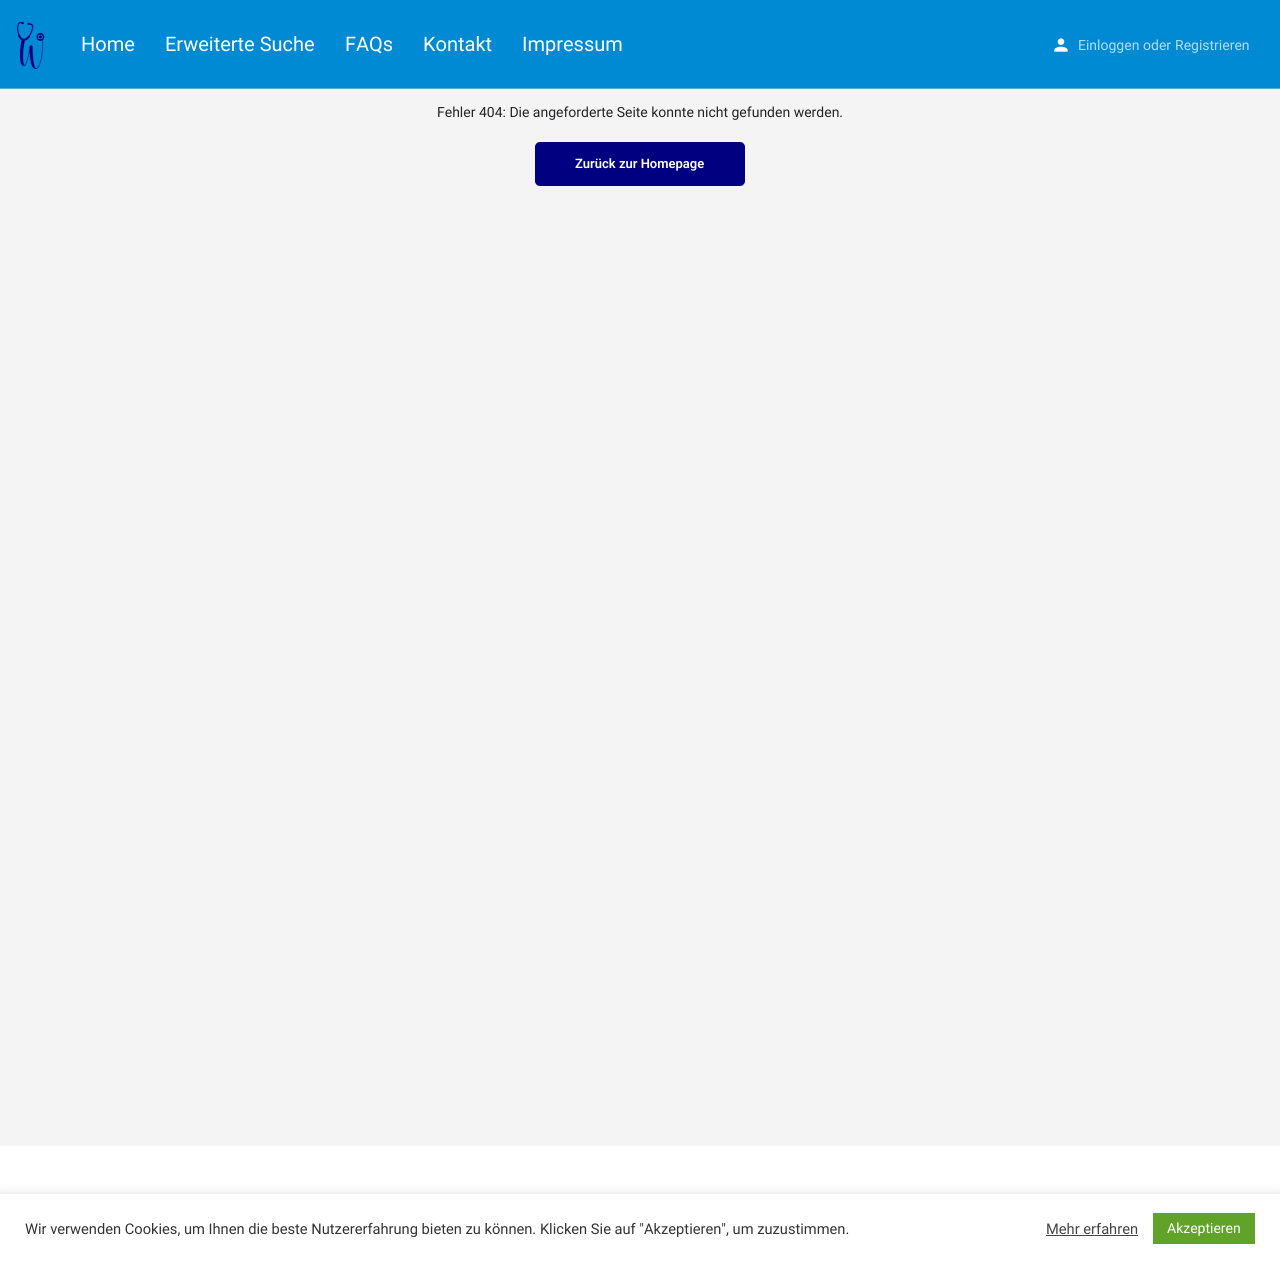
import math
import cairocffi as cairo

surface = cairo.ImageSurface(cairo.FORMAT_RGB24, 1280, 1263)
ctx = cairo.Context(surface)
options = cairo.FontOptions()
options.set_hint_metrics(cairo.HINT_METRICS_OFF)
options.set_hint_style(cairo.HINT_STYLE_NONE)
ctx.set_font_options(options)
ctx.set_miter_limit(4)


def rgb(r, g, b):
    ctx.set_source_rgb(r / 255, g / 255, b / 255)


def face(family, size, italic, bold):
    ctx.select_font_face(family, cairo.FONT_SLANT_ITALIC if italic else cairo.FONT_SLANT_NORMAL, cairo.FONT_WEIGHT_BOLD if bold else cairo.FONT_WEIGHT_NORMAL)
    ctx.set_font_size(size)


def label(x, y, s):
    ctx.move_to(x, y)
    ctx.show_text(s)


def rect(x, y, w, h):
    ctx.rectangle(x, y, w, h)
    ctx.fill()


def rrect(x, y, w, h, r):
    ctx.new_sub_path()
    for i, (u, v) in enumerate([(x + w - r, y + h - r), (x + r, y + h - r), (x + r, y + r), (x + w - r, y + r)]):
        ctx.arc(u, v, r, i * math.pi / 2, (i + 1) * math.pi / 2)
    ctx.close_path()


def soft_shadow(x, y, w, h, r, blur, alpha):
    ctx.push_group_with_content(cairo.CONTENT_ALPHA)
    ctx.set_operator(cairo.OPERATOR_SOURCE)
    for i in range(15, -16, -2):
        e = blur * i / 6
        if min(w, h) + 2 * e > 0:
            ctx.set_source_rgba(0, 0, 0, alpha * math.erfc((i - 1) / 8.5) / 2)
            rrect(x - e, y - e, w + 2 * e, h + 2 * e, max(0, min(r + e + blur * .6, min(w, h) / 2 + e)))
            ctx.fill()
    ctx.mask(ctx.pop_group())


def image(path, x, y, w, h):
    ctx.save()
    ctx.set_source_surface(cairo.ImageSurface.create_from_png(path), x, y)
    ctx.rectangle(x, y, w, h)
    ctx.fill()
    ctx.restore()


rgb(244, 244, 244)
ctx.paint()
rgb(0, 138, 211)
rect(0, 0, 1280, 88)
rgb(83, 173, 203)
rect(0, 88, 1280, 1)
image('image0.png', 17, 21, 28, 49)
face('Roboto', 20, 0, 0)
rgb(255, 255, 255)
label(81, 51, 'Home')
label(165, 51, 'Erweiterte Suche')
label(345, 51, 'FAQs')
label(423, 51, 'Kontakt')
label(522, 51, 'Impressum')
image('image1.png', 1054, 38, 14, 14)
face('Roboto', 14, 0, 0)
rgb(179, 220, 242)
label(1078, 50, 'Einloggen')
label(1143, 50, 'oder')
label(1175, 50, 'Registrieren')
rgb(36, 36, 41)
label(437, 117, 'Fehler 404: Die angeforderte Seite konnte nicht gefunden werden.')
rgb(0, 0, 128)
rrect(535, 142, 210, 44, 5)
ctx.fill()
face('Roboto SemiBold', 13, 0, 0)
rgb(255, 255, 255)
label(575, 168, 'Zurück zur Homepage')
rect(0, 1146, 1280, 48)
rgb(172, 171, 171)
soft_shadow(0, 1193, 1280, 69, 0, 5, 0.3)
rgb(255, 255, 255)
rect(0, 1194, 1280, 69)
face('Roboto', 14.67, 0, 0)
rgb(51, 51, 51)
label(25, 1234, 'Wir verwenden Cookies, um Ihnen die beste Nutzererfahrung bieten zu können. Klicken Sie auf "Akzeptieren", um zuzustimmen.')
rgb(68, 68, 68)
label(1046, 1234, 'Mehr erfahren')
rect(1046, 1235, 92, 1)
rgb(97, 162, 41)
rect(1153, 1213, 102, 31)
face('Roboto', 14, 0, 0)
rgb(255, 255, 255)
label(1167, 1233, 'Akzeptieren')
surface.write_to_png('render.png')
